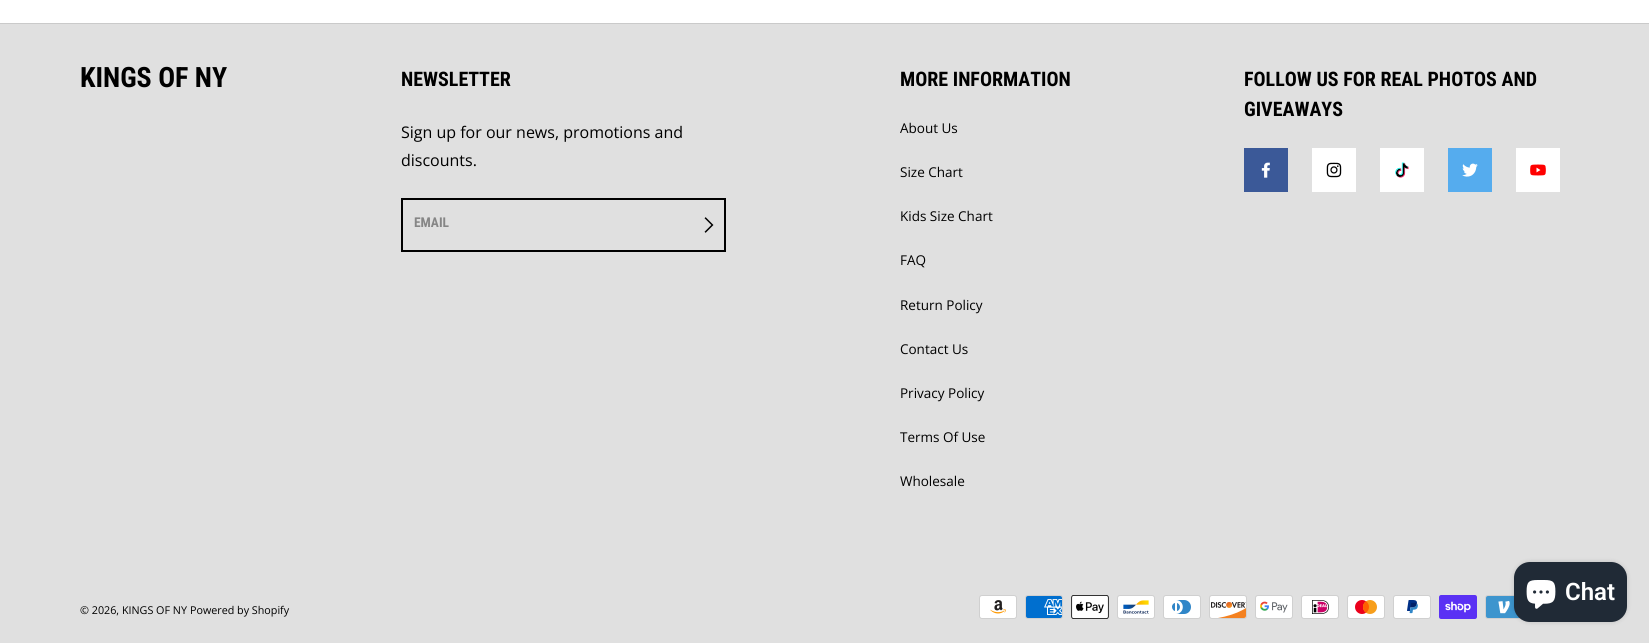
import math
import cairocffi as cairo

surface = cairo.ImageSurface(cairo.FORMAT_RGB24, 1649, 643)
ctx = cairo.Context(surface)
options = cairo.FontOptions()
options.set_hint_metrics(cairo.HINT_METRICS_OFF)
options.set_hint_style(cairo.HINT_STYLE_NONE)
ctx.set_font_options(options)
ctx.set_miter_limit(4)


def rgb(r, g, b):
    ctx.set_source_rgb(r / 255, g / 255, b / 255)


def face(family, size, italic, bold):
    ctx.select_font_face(family, cairo.FONT_SLANT_ITALIC if italic else cairo.FONT_SLANT_NORMAL, cairo.FONT_WEIGHT_BOLD if bold else cairo.FONT_WEIGHT_NORMAL)
    ctx.set_font_size(size)


def label(x, y, s):
    ctx.move_to(x, y)
    ctx.show_text(s)


def rect(x, y, w, h):
    ctx.rectangle(x, y, w, h)
    ctx.fill()


def rrect(x, y, w, h, r):
    ctx.new_sub_path()
    for i, (u, v) in enumerate([(x + w - r, y + h - r), (x + r, y + h - r), (x + r, y + r), (x + w - r, y + r)]):
        ctx.arc(u, v, r, i * math.pi / 2, (i + 1) * math.pi / 2)
    ctx.close_path()


def soft_shadow(x, y, w, h, r, blur, alpha):
    ctx.push_group_with_content(cairo.CONTENT_ALPHA)
    ctx.set_operator(cairo.OPERATOR_SOURCE)
    for i in range(15, -16, -2):
        e = blur * i / 6
        if min(w, h) + 2 * e > 0:
            ctx.set_source_rgba(0, 0, 0, alpha * math.erfc((i - 1) / 8.5) / 2)
            rrect(x - e, y - e, w + 2 * e, h + 2 * e, max(0, min(r + e + blur * .6, min(w, h) / 2 + e)))
            ctx.fill()
    ctx.mask(ctx.pop_group())


def image(path, x, y, w, h):
    ctx.save()
    ctx.set_source_surface(cairo.ImageSurface.create_from_png(path), x, y)
    ctx.rectangle(x, y, w, h)
    ctx.fill()
    ctx.restore()


rgb(255, 255, 255)
ctx.paint()
rgb(224, 224, 224)
rect(0, 24, 1649, 619)
rgb(202, 202, 202)
rect(0, 23, 1649, 1)
face('Roboto Condensed', 28, 0, 1)
rgb(0, 0, 0)
label(80, 87, 'KINGS OF NY')
face('Roboto Condensed', 20, 0, 1)
label(401, 86, 'NEWSLETTER')
face('Open Sans', 16, 0, 0)
label(401, 138, 'Sign up for our news, promotions and')
label(401, 166, 'discounts.')
ctx.rectangle(402, 199, 323, 52)
ctx.stroke()
face('Roboto Condensed', 13.5, 0, 1)
rgb(134, 134, 134)
label(414, 227, 'EMAIL')
image('image0.png', 704, 217, 10, 16)
face('Roboto Condensed', 20, 0, 1)
rgb(0, 0, 0)
label(900, 86, 'MORE INFORMATION')
face('Open Sans', 13.5, 0, 0)
label(900, 133, 'About Us')
label(900, 177, 'Size Chart')
label(900, 221, 'Kids Size Chart')
label(900, 265, 'FAQ')
label(900, 310, 'Return Policy')
label(900, 354, 'Contact Us')
label(900, 398, 'Privacy Policy')
label(900, 442, 'Terms Of Use')
label(900, 486, 'Wholesale')
face('Roboto Condensed', 20, 0, 1)
label(1244, 86, 'FOLLOW US FOR REAL PHOTOS AND')
label(1244, 116, 'GIVEAWAYS')
rgb(59, 89, 152)
rect(1244, 148, 44, 44)
image('image1.png', 1261, 162, 9, 16)
rgb(255, 255, 255)
rect(1312, 148, 44, 44)
image('image2.png', 1326, 162, 16, 16)
rect(1380, 148, 44, 44)
image('image3.png', 1395, 162, 14, 16)
rgb(85, 172, 238)
rect(1448, 148, 44, 44)
image('image4.png', 1462, 163, 16, 14)
rgb(255, 255, 255)
rect(1516, 148, 44, 44)
image('image5.png', 1530, 164, 16, 12)
face('Open Sans', 10.75, 0, 0)
rgb(0, 0, 0)
label(80, 614, '© 2026, KINGS OF NY')
label(190, 614, 'Powered by Shopify')
image('image6.png', 979, 595, 38, 24)
image('image7.png', 1025, 595, 38, 24)
image('image8.png', 1071, 595, 38, 24)
image('image9.png', 1117, 595, 38, 24)
image('image10.png', 1163, 595, 38, 24)
image('image11.png', 1209, 595, 38, 24)
image('image12.png', 1255, 595, 38, 24)
image('image13.png', 1301, 595, 38, 24)
image('image14.png', 1347, 595, 38, 24)
image('image15.png', 1393, 595, 38, 24)
image('image16.png', 1439, 595, 38, 24)
image('image17.png', 1485, 595, 36, 24)
rgb(0, 0, 0)
soft_shadow(1514, 562, 113, 60, 16, 2.5, 0.15)
rgb(32, 42, 54)
rrect(1514, 562, 113, 60, 16)
ctx.fill()
image('image18.png', 1526, 580, 30, 29)
face('Roboto SemiBold', 24, 0, 0)
rgb(255, 255, 255)
label(1565, 600, 'Chat')
surface.write_to_png('render.png')
